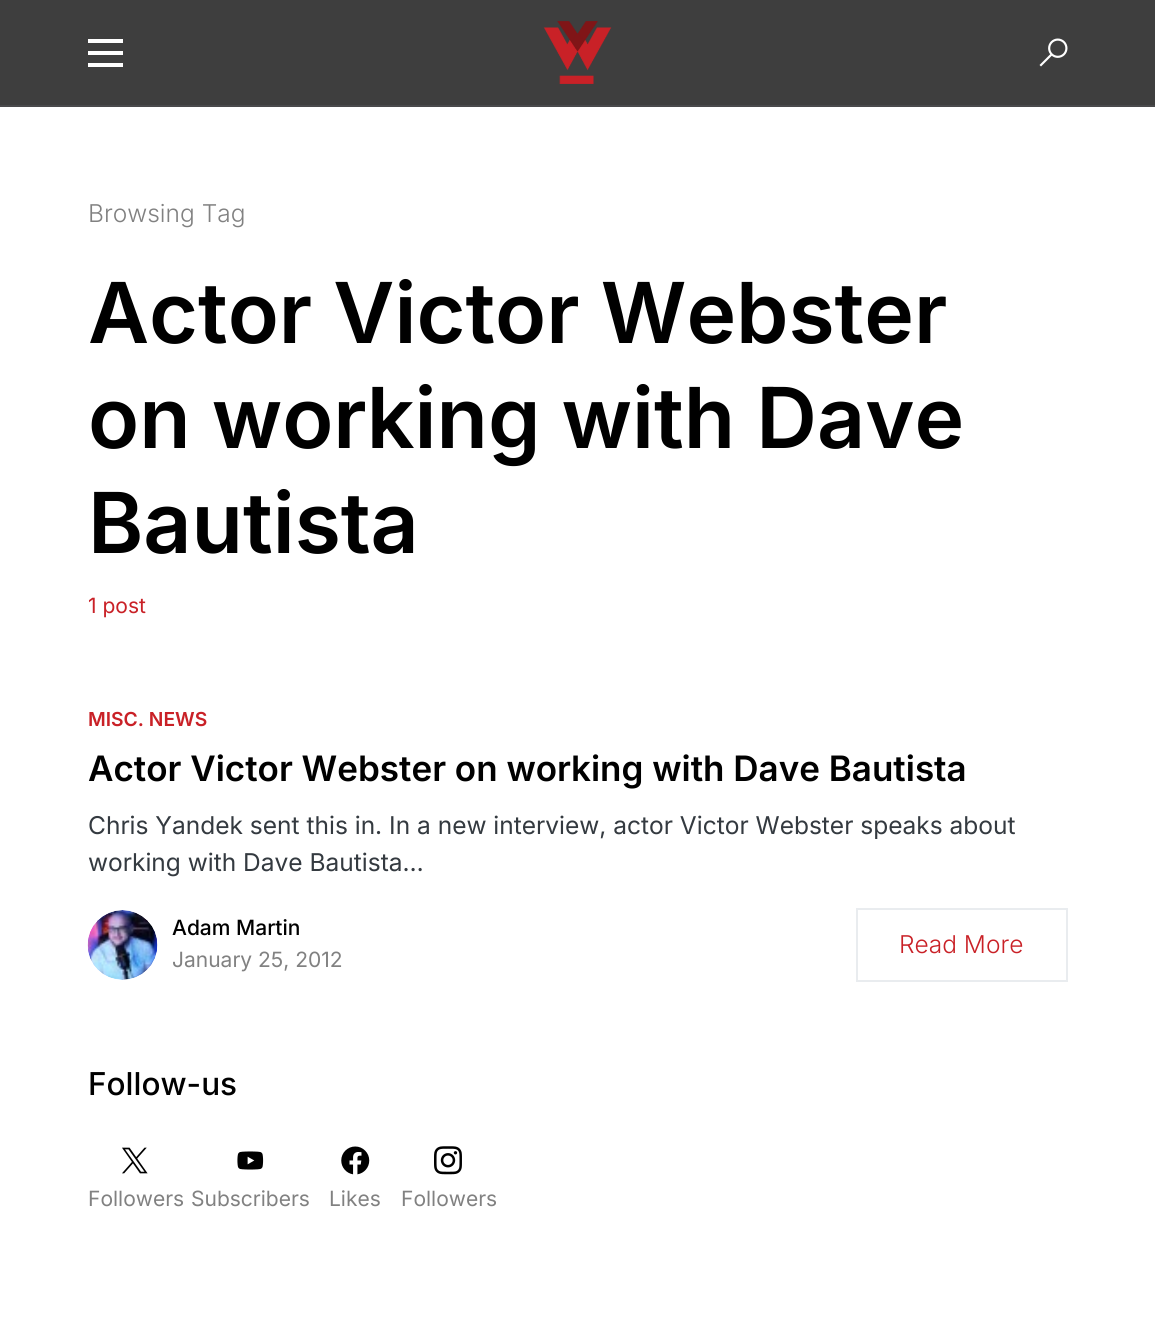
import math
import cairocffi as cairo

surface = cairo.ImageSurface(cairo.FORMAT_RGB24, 1155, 1317)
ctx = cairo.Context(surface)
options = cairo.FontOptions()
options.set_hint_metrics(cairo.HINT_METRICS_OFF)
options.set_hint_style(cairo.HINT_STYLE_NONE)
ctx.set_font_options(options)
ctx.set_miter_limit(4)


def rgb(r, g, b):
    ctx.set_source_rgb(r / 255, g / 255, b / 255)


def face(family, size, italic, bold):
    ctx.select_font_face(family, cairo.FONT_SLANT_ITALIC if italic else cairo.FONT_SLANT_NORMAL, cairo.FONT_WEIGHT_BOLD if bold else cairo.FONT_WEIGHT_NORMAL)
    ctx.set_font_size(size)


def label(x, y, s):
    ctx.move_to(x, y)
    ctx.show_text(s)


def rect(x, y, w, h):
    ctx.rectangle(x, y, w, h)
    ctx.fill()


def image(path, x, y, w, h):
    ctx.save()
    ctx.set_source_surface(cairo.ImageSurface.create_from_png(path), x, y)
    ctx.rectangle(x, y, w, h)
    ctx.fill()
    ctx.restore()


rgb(255, 255, 255)
ctx.paint()
rgb(62, 62, 62)
rect(0, 0, 1155, 105)
rgb(73, 73, 75)
rect(0, 105, 1155, 2)
rgb(255, 255, 255)
rect(88, 39, 35, 4)
rect(88, 51, 35, 4)
rect(88, 63, 35, 4)
image('image0.png', 543, 21, 69, 63)
image('image1.png', 1039, 38, 29, 29)
face('Inter Light', 24.5, 0, 0)
rgb(129, 129, 129)
label(88, 222, 'Browsing Tag')
face('Inter SemiBold', 84, 0, 0)
rgb(0, 0, 0)
label(88, 343, 'Actor Victor Webster')
label(88, 448, 'on working with Dave')
label(88, 553, 'Bautista')
face('Inter', 21, 0, 0)
rgb(201, 33, 39)
label(88, 613, '1 post')
face('Inter SemiBold', 19.25, 0, 0)
label(88, 726, 'MISC. NEWS')
face('Inter SemiBold', 35, 0, 0)
rgb(0, 0, 0)
label(88, 781, 'Actor Victor Webster on working with Dave Bautista')
face('Inter', 24.5, 0, 0)
rgb(52, 58, 64)
label(88, 834, 'Chris Yandek sent this in. In a new interview, actor Victor Webster speaks about')
label(88, 871, 'working with Dave Bautista…')
image('image2.png', 87, 910, 71, 70)
face('Inter Medium', 21, 0, 0)
rgb(0, 0, 0)
label(172, 935, 'Adam Martin')
face('Inter', 21, 0, 0)
rgb(129, 129, 129)
label(172, 967, 'January 25, 2012')
ctx.rectangle(857, 909, 210, 72)
rgb(233, 236, 239)
ctx.stroke()
face('Inter Light', 24.5, 0, 0)
rgb(201, 33, 39)
label(899, 953, 'Read More')
face('Inter Medium', 31.5, 0, 0)
rgb(0, 0, 0)
label(88, 1095, 'Follow-us')
image('image3.png', 122, 1147, 26, 27)
face('Inter', 21, 0, 0)
rgb(129, 129, 129)
label(88, 1206, 'Followers')
image('image4.png', 237, 1151, 27, 19)
label(191, 1206, 'Subscribers')
image('image5.png', 341, 1146, 29, 29)
label(329, 1206, 'Likes')
image('image6.png', 434, 1146, 28, 29)
label(401, 1206, 'Followers')
surface.write_to_png('render.png')
